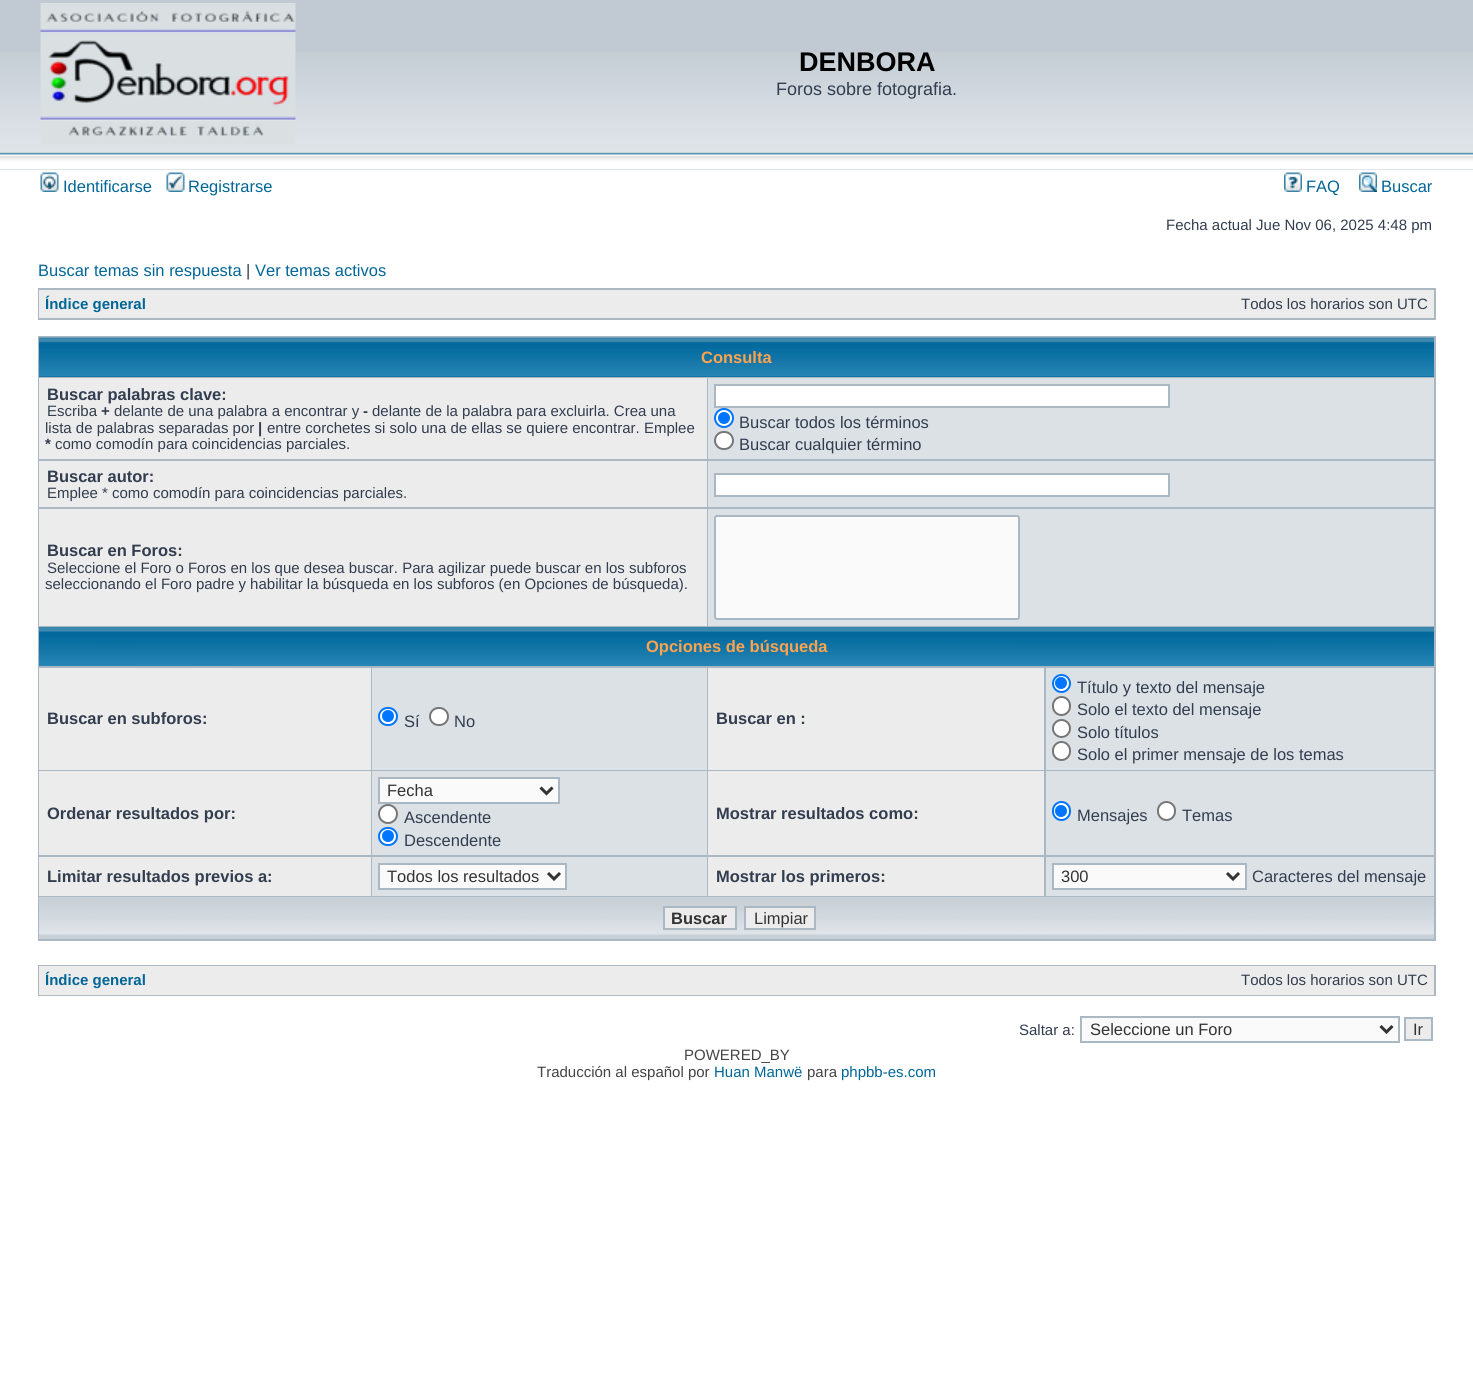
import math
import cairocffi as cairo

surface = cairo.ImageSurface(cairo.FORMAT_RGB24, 1473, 1384)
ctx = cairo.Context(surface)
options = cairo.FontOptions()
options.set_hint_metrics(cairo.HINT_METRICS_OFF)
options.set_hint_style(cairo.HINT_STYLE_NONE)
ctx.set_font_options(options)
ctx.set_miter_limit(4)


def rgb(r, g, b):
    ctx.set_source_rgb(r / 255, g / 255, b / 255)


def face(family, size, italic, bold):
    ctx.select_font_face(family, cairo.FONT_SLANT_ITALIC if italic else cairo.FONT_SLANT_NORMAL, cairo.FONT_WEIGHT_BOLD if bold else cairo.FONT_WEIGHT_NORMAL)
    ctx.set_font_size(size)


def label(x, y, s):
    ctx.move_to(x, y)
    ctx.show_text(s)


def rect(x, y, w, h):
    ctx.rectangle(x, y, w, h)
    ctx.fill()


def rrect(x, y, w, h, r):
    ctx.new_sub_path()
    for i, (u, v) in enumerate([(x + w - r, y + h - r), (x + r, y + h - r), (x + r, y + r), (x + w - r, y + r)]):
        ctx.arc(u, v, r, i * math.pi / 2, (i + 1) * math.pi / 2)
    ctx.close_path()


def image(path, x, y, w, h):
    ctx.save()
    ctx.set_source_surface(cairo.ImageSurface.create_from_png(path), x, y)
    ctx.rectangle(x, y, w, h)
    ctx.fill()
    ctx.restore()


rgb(255, 255, 255)
ctx.paint()
rgb(193, 202, 210)
rect(0, 0, 1473, 170)
image('image0.png', 0, 52, 1473, 118)
image('image1.png', 40, 3, 256, 141)
face('Liberation Sans', 27, 0, 1)
rgb(0, 0, 0)
label(799, 71, 'DENBORA')
face('Liberation Sans', 18, 0, 0)
rgb(50, 61, 79)
label(776, 95, 'Foros sobre fotografia.')
image('image2.png', 40, 172, 19, 20)
face('Liberation Sans', 16.5, 0, 0)
rgb(0, 101, 151)
label(63, 192, 'Identificarse')
image('image3.png', 166, 172, 19, 20)
label(188, 192, 'Registrarse')
image('image4.png', 1284, 172, 18, 20)
label(1306, 192, 'FAQ')
image('image5.png', 1359, 172, 18, 20)
label(1381, 192, 'Buscar')
face('Liberation Sans', 15, 0, 0)
rgb(50, 61, 79)
label(1166, 230, 'Fecha actual Jue Nov 06, 2025 4:48 pm')
face('Liberation Sans', 16.5, 0, 0)
rgb(0, 101, 151)
label(38, 276, 'Buscar temas sin respuesta')
rgb(50, 61, 79)
label(246, 276, '|')
rgb(0, 101, 151)
label(255, 276, 'Ver temas activos')
rgb(169, 184, 194)
rect(38, 288, 1398, 32)
rgb(236, 236, 236)
rect(39, 290, 1395, 28)
face('Liberation Sans', 15, 0, 1)
rgb(0, 101, 151)
label(45, 309, 'Índice general')
face('Liberation Sans', 15, 0, 0)
rgb(50, 61, 79)
label(1241, 309, 'Todos los horarios son UTC')
rgb(169, 184, 194)
rect(38, 336, 1398, 605)
rgb(0, 102, 153)
rect(39, 376, 1395, 1)
image('image6.png', 39, 337, 1395, 40)
face('Liberation Sans', 16.5, 0, 1)
rgb(255, 163, 79)
label(701, 363, 'Consulta')
rgb(236, 236, 236)
rect(39, 378, 668, 81)
rgb(50, 61, 79)
label(47, 400, 'Buscar palabras clave:')
face('Liberation Sans', 15, 0, 0)
label(47, 416, 'Escriba')
face('Liberation Sans', 15, 0, 1)
label(101, 416, '+')
face('Liberation Sans', 15, 0, 0)
label(114, 416, 'delante de una palabra a encontrar y')
face('Liberation Sans', 15, 0, 1)
label(363, 416, '-')
face('Liberation Sans', 15, 0, 0)
label(372, 416, 'delante de la palabra para excluirla. Crea una')
label(45, 433, 'lista de palabras separadas por')
face('Liberation Sans', 15, 0, 1)
label(258, 433, '|')
face('Liberation Sans', 15, 0, 0)
label(267, 433, 'entre corchetes si solo una de ellas se quiere encontrar. Emplee')
face('Liberation Sans', 15, 0, 1)
label(45, 449, '*')
face('Liberation Sans', 15, 0, 0)
label(55, 449, 'como comodín para coincidencias parciales.')
rgb(220, 225, 229)
rect(708, 378, 726, 81)
rgb(255, 255, 255)
ctx.rectangle(715, 385, 454, 22)
ctx.fill_preserve()
rgb(169, 184, 194)
ctx.stroke()
rgb(255, 255, 255)
ctx.arc(724, 418, 9, 0, 2 * math.pi)
ctx.fill_preserve()
rgb(0, 117, 255)
ctx.stroke()
ctx.arc(724, 418, 6, 0, 2 * math.pi)
ctx.fill()
face('Liberation Sans', 16.5, 0, 0)
rgb(50, 61, 79)
label(739, 428, 'Buscar todos los términos')
rgb(255, 255, 255)
rrect(715, 432, 18, 17, 8.5)
ctx.fill_preserve()
rgb(118, 118, 118)
ctx.stroke()
rgb(50, 61, 79)
label(739, 450, 'Buscar cualquier término')
rgb(236, 236, 236)
rect(39, 461, 668, 46)
face('Liberation Sans', 16.5, 0, 1)
rgb(50, 61, 79)
label(47, 482, 'Buscar autor:')
face('Liberation Sans', 15, 0, 0)
label(47, 498, 'Emplee * como comodín para coincidencias parciales.')
rgb(220, 225, 229)
rect(708, 461, 726, 46)
rgb(255, 255, 255)
ctx.rectangle(715, 474, 454, 22)
ctx.fill_preserve()
rgb(169, 184, 194)
ctx.stroke()
rgb(236, 236, 236)
rect(39, 509, 668, 117)
face('Liberation Sans', 16.5, 0, 1)
rgb(50, 61, 79)
label(47, 556, 'Buscar en Foros:')
face('Liberation Sans', 15, 0, 0)
label(47, 573, 'Seleccione el Foro o Foros en los que desea buscar. Para agilizar puede buscar en los subforos')
label(45, 589, 'seleccionando el Foro padre y habilitar la búsqueda en los subforos (en Opciones de búsqueda).')
rgb(220, 225, 229)
rect(708, 509, 726, 117)
rgb(250, 250, 250)
rrect(715, 516, 304, 103, 2)
ctx.fill_preserve()
rgb(169, 184, 194)
ctx.stroke()
image('image7.png', 39, 627, 1395, 39)
face('Liberation Sans', 16.5, 0, 1)
rgb(255, 163, 79)
label(646, 652, 'Opciones de búsqueda')
rgb(236, 236, 236)
rect(39, 668, 332, 102)
rgb(50, 61, 79)
label(47, 724, 'Buscar en subforos:')
rgb(220, 225, 229)
rect(372, 668, 335, 102)
rgb(255, 255, 255)
rrect(379, 708, 18, 17, 8.5)
ctx.fill_preserve()
rgb(0, 117, 255)
ctx.stroke()
ctx.arc(388, 716, 6, 0, 2 * math.pi)
ctx.fill()
face('Liberation Sans', 16.5, 0, 0)
rgb(50, 61, 79)
label(404, 727, 'Sí')
rgb(255, 255, 255)
rrect(430, 708, 18, 17, 8.5)
ctx.fill_preserve()
rgb(118, 118, 118)
ctx.stroke()
rgb(50, 61, 79)
label(454, 727, 'No')
rgb(236, 236, 236)
rect(708, 668, 336, 102)
face('Liberation Sans', 16.5, 0, 1)
rgb(50, 61, 79)
label(716, 724, 'Buscar en :')
rgb(220, 225, 229)
rect(1046, 668, 388, 102)
rgb(255, 255, 255)
ctx.new_path()
ctx.arc(1061.5, 683.5, 8.5, 0, 2 * math.pi)
ctx.fill_preserve()
rgb(0, 117, 255)
ctx.stroke()
ctx.arc(1061, 683, 6, 0, 2 * math.pi)
ctx.fill()
face('Liberation Sans', 16.5, 0, 0)
rgb(50, 61, 79)
label(1077, 693, 'Título y texto del mensaje')
rgb(255, 255, 255)
rrect(1053, 697, 17, 18, 8.5)
ctx.fill_preserve()
rgb(118, 118, 118)
ctx.stroke()
rgb(50, 61, 79)
label(1077, 715, 'Solo el texto del mensaje')
rgb(255, 255, 255)
ctx.new_path()
ctx.arc(1061.5, 728.5, 8.5, 0, 2 * math.pi)
ctx.fill_preserve()
rgb(118, 118, 118)
ctx.stroke()
rgb(50, 61, 79)
label(1077, 738, 'Solo títulos')
rgb(255, 255, 255)
rrect(1053, 742, 17, 18, 8.5)
ctx.fill_preserve()
rgb(118, 118, 118)
ctx.stroke()
rgb(50, 61, 79)
label(1077, 760, 'Solo el primer mensaje de los temas')
rgb(236, 236, 236)
rect(39, 771, 332, 84)
face('Liberation Sans', 16.5, 0, 1)
rgb(50, 61, 79)
label(47, 819, 'Ordenar resultados por:')
rgb(220, 225, 229)
rect(372, 771, 335, 84)
rgb(250, 250, 250)
ctx.rectangle(379, 778, 180, 25)
ctx.fill_preserve()
rgb(169, 184, 194)
ctx.stroke()
ctx.new_path()
ctx.move_to(540.5, 787.5)
ctx.line_to(546.5, 793.5)
ctx.line_to(552.5, 787.5)
rgb(51, 51, 51)
ctx.set_line_width(3)
ctx.stroke()
face('Liberation Sans', 16.5, 0, 0)
label(387, 796, 'Fecha')
rgb(255, 255, 255)
ctx.new_path()
ctx.arc(388, 814, 9, 0, 2 * math.pi)
ctx.fill_preserve()
rgb(118, 118, 118)
ctx.set_line_width(2)
ctx.stroke()
rgb(50, 61, 79)
label(404, 823, 'Ascendente')
rgb(255, 255, 255)
rrect(379, 828, 18, 17, 8.5)
ctx.fill_preserve()
rgb(0, 117, 255)
ctx.stroke()
ctx.arc(388, 836, 6, 0, 2 * math.pi)
ctx.fill()
rgb(50, 61, 79)
label(404, 846, 'Descendente')
rgb(236, 236, 236)
rect(708, 771, 336, 84)
face('Liberation Sans', 16.5, 0, 1)
rgb(50, 61, 79)
label(716, 819, 'Mostrar resultados como:')
rgb(220, 225, 229)
rect(1046, 771, 388, 84)
rgb(255, 255, 255)
rrect(1053, 802, 17, 18, 8.5)
ctx.fill_preserve()
rgb(0, 117, 255)
ctx.stroke()
ctx.arc(1061, 811, 6, 0, 2 * math.pi)
ctx.fill()
face('Liberation Sans', 16.5, 0, 0)
rgb(50, 61, 79)
label(1077, 821, 'Mensajes')
rgb(255, 255, 255)
rrect(1158, 802, 17, 18, 8.5)
ctx.fill_preserve()
rgb(118, 118, 118)
ctx.stroke()
rgb(50, 61, 79)
label(1182, 821, 'Temas')
rgb(236, 236, 236)
rect(39, 857, 332, 39)
face('Liberation Sans', 16.5, 0, 1)
rgb(50, 61, 79)
label(47, 882, 'Limitar resultados previos a:')
rgb(220, 225, 229)
rect(372, 857, 335, 39)
rgb(250, 250, 250)
ctx.rectangle(379, 864, 187, 25)
ctx.fill_preserve()
rgb(169, 184, 194)
ctx.stroke()
ctx.new_path()
ctx.move_to(548, 873)
ctx.line_to(554, 879)
ctx.line_to(560, 873)
rgb(51, 51, 51)
ctx.set_line_width(3)
ctx.stroke()
face('Liberation Sans', 16.5, 0, 0)
label(387, 882, 'Todos los resultados')
rgb(236, 236, 236)
rect(708, 857, 336, 39)
face('Liberation Sans', 16.5, 0, 1)
rgb(50, 61, 79)
label(716, 882, 'Mostrar los primeros:')
rgb(220, 225, 229)
rect(1046, 857, 388, 39)
rgb(250, 250, 250)
ctx.rectangle(1053, 864, 193, 25)
ctx.fill_preserve()
rgb(169, 184, 194)
ctx.set_line_width(2)
ctx.stroke()
ctx.new_path()
ctx.move_to(1227, 873)
ctx.line_to(1233, 879)
ctx.line_to(1239, 873)
rgb(51, 51, 51)
ctx.set_line_width(3)
ctx.stroke()
face('Liberation Sans', 16.5, 0, 0)
label(1061, 882, '300')
rgb(50, 61, 79)
label(1252, 882, 'Caracteres del mensaje')
rgb(199, 208, 215)
rect(39, 935, 1395, 4)
image('image8.png', 39, 897, 1395, 38)
rgb(236, 236, 236)
ctx.rectangle(664, 907, 72, 22)
ctx.fill_preserve()
rgb(169, 184, 194)
ctx.set_line_width(2)
ctx.stroke()
face('Liberation Sans', 16.5, 0, 1)
rgb(51, 51, 51)
label(671, 924, 'Buscar')
rgb(236, 236, 236)
ctx.rectangle(745, 907, 70, 22)
ctx.fill_preserve()
rgb(169, 184, 194)
ctx.stroke()
face('Liberation Sans', 16.5, 0, 0)
rgb(51, 51, 51)
label(754, 924, 'Limpiar')
rgb(169, 184, 194)
rect(38, 965, 1398, 31)
rgb(236, 236, 236)
rect(39, 966, 1395, 29)
face('Liberation Sans', 15, 0, 1)
rgb(0, 101, 151)
label(45, 985, 'Índice general')
face('Liberation Sans', 15, 0, 0)
rgb(50, 61, 79)
label(1241, 985, 'Todos los horarios son UTC')
label(1019, 1035, 'Saltar a:')
rgb(250, 250, 250)
ctx.rectangle(1081, 1017, 318, 25)
ctx.fill_preserve()
rgb(169, 184, 194)
ctx.stroke()
ctx.new_path()
ctx.move_to(1380.5, 1026)
ctx.line_to(1386.5, 1032)
ctx.line_to(1392.5, 1026)
rgb(51, 51, 51)
ctx.set_line_width(3)
ctx.stroke()
face('Liberation Sans', 16.5, 0, 0)
label(1090, 1035, 'Seleccione un Foro')
rgb(236, 236, 236)
ctx.rectangle(1405, 1018, 27, 22)
ctx.fill_preserve()
rgb(169, 184, 194)
ctx.set_line_width(2)
ctx.stroke()
rgb(51, 51, 51)
label(1413, 1035, 'Ir')
face('Liberation Sans', 15, 0, 0)
rgb(68, 68, 68)
label(684, 1060, 'POWERED_BY')
label(537, 1077, 'Traducción al español por')
rgb(0, 101, 151)
label(714, 1077, 'Huan Manwë')
rgb(68, 68, 68)
label(807, 1077, 'para')
rgb(0, 101, 151)
label(841, 1077, 'phpbb-es.com')
surface.write_to_png('render.png')
